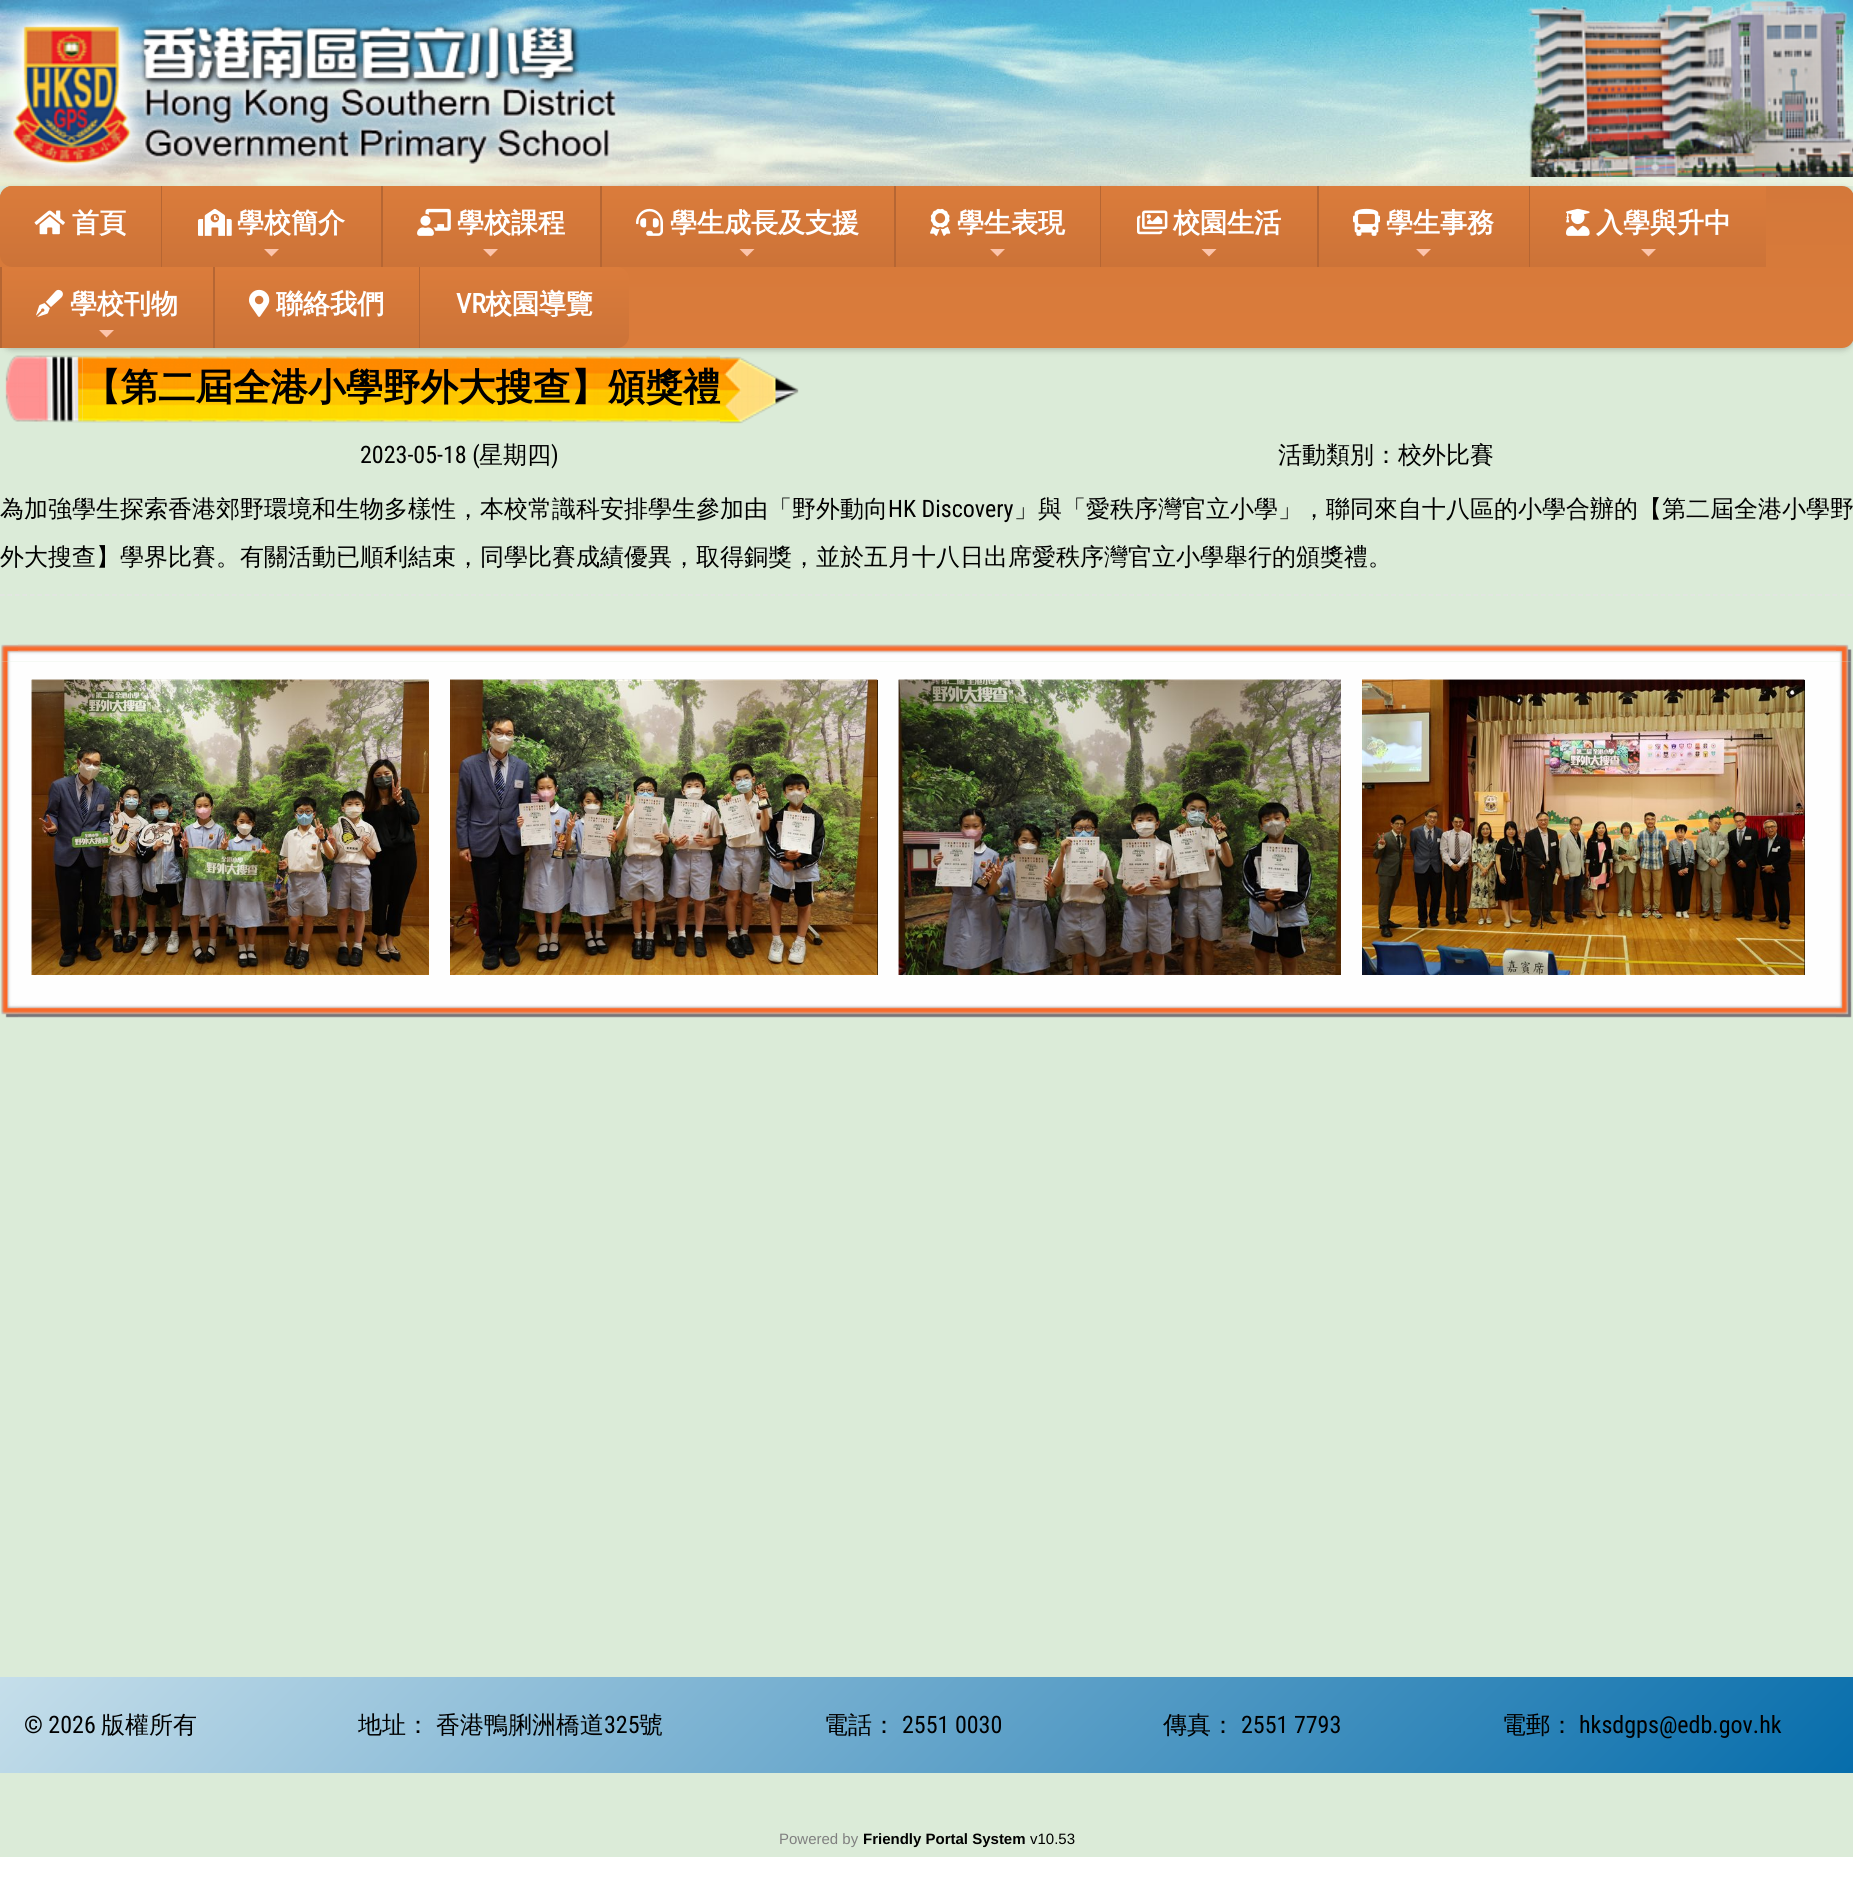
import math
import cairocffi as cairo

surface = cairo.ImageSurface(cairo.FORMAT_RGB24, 1853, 1899)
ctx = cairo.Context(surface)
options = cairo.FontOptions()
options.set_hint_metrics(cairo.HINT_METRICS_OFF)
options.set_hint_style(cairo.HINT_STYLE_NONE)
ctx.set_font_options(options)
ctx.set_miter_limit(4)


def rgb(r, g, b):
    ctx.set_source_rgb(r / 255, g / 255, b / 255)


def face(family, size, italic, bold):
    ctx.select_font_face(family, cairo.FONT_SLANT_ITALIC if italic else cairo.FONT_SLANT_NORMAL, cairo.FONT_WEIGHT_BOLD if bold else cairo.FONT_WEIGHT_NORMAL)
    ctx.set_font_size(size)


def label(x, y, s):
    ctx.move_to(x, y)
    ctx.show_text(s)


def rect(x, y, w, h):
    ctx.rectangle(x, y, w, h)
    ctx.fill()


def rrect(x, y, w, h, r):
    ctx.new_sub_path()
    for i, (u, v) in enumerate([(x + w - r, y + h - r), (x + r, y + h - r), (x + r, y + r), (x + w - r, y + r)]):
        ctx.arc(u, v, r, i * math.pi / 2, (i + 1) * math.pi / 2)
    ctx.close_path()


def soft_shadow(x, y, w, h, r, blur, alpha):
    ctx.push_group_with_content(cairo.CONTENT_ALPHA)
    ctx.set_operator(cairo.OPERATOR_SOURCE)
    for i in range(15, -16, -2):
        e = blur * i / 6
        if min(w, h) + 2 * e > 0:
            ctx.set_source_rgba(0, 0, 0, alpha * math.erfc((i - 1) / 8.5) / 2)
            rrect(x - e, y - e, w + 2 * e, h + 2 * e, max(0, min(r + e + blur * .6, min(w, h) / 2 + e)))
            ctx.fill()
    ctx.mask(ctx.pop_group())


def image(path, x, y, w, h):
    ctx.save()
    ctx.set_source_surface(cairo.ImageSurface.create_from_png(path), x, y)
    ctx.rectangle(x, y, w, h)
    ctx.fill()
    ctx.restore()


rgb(255, 255, 255)
ctx.paint()
rgb(219, 235, 216)
rect(0, 186, 1853, 1671)
image('image0.png', 0, 0, 1853, 186)
image('image1.png', 0, 6, 618, 170)
image('image2.png', 1527, 0, 326, 177)
image('image13.png', 5, 355, 78, 68)
image('image14.png', 82, 355, 638, 68)
image('image15.png', 720, 356, 79, 68)
rgb(0, 0, 0)
soft_shadow(0, 188, 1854, 162, 12, 3, 0.2)
gradient = cairo.LinearGradient(927, 186, 927, 348)
gradient.add_color_stop_rgba(0, 0.831, 0.471, 0.227, 1)
gradient.add_color_stop_rgba(1, 0.859, 0.486, 0.231, 1)
ctx.set_source(gradient)
rrect(0, 186, 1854, 162, 12)
ctx.fill()
gradient = cairo.LinearGradient(80, 186, 80, 267)
gradient.add_color_stop_rgba(0, 0.859, 0.486, 0.231, 1)
gradient.add_color_stop_rgba(1, 0.8, 0.451, 0.22, 1)
ctx.set_source(gradient)
ctx.new_path()
ctx.move_to(12, 186)
ctx.line_to(161, 186)
ctx.line_to(161, 267)
ctx.line_to(12, 267)
ctx.curve_to(5.5, 267, 0, 261.5, 0, 255)
ctx.line_to(0, 198)
ctx.curve_to(0, 191.5, 5.5, 186, 12, 186)
ctx.close_path()
ctx.fill()
image('image3.png', 34, 210, 31, 25)
face('WenQuanYi Zen Hei', 27, 0, 1)
rgb(255, 255, 255)
label(72, 232, '首頁')
rgb(182, 102, 51)
rect(161, 186, 1, 81)
gradient = cairo.LinearGradient(272, 186, 272, 267)
gradient.add_color_stop_rgba(0, 0.859, 0.486, 0.231, 1)
gradient.add_color_stop_rgba(1, 0.8, 0.451, 0.22, 1)
ctx.set_source(gradient)
rect(162, 186, 219, 81)
image('image4.png', 198, 208, 34, 28)
rgb(255, 255, 255)
label(237, 232, '學校簡介')
rgb(252, 196, 171)
ctx.new_path()
ctx.move_to(264, 249)
ctx.line_to(279, 249)
ctx.line_to(271.5, 256.5)
ctx.close_path()
ctx.fill()
rgb(182, 102, 51)
rect(381, 186, 2, 81)
gradient = cairo.LinearGradient(491, 186, 491, 267)
gradient.add_color_stop_rgba(0, 0.859, 0.486, 0.231, 1)
gradient.add_color_stop_rgba(1, 0.8, 0.451, 0.22, 1)
ctx.set_source(gradient)
rect(383, 186, 217, 81)
image('image5.png', 417, 208, 34, 28)
rgb(255, 255, 255)
label(457, 232, '學校課程')
rgb(252, 196, 171)
ctx.new_path()
ctx.move_to(483, 249)
ctx.line_to(498, 249)
ctx.line_to(490.5, 256.5)
ctx.close_path()
ctx.fill()
rgb(182, 102, 51)
rect(600, 186, 2, 81)
gradient = cairo.LinearGradient(748, 186, 748, 267)
gradient.add_color_stop_rgba(0, 0.859, 0.486, 0.231, 1)
gradient.add_color_stop_rgba(1, 0.8, 0.451, 0.22, 1)
ctx.set_source(gradient)
rect(602, 186, 292, 81)
image('image6.png', 636, 208, 27, 28)
rgb(255, 255, 255)
label(670, 232, '學生成長及支援')
rgb(252, 196, 171)
ctx.new_path()
ctx.move_to(739.5, 249)
ctx.line_to(754.5, 249)
ctx.line_to(747, 256.5)
ctx.close_path()
ctx.fill()
rgb(182, 102, 51)
rect(894, 186, 2, 81)
gradient = cairo.LinearGradient(998, 186, 998, 267)
gradient.add_color_stop_rgba(0, 0.859, 0.486, 0.231, 1)
gradient.add_color_stop_rgba(1, 0.8, 0.451, 0.22, 1)
ctx.set_source(gradient)
rect(896, 186, 204, 81)
image('image7.png', 930, 208, 21, 28)
rgb(255, 255, 255)
label(957, 232, '學生表現')
rgb(252, 196, 171)
ctx.new_path()
ctx.move_to(990, 249)
ctx.line_to(1005, 249)
ctx.line_to(997.5, 256.5)
ctx.close_path()
ctx.fill()
rgb(182, 102, 51)
rect(1100, 186, 1, 81)
gradient = cairo.LinearGradient(1209, 186, 1209, 267)
gradient.add_color_stop_rgba(0, 0.859, 0.486, 0.231, 1)
gradient.add_color_stop_rgba(1, 0.8, 0.451, 0.22, 1)
ctx.set_source(gradient)
rect(1101, 186, 216, 81)
image('image8.png', 1137, 210, 31, 25)
rgb(255, 255, 255)
label(1173, 232, '校園生活')
rgb(252, 196, 171)
ctx.new_path()
ctx.move_to(1201.5, 249)
ctx.line_to(1216.5, 249)
ctx.line_to(1209, 256.5)
ctx.close_path()
ctx.fill()
rgb(182, 102, 51)
rect(1317, 186, 2, 81)
gradient = cairo.LinearGradient(1424, 186, 1424, 267)
gradient.add_color_stop_rgba(0, 0.859, 0.486, 0.231, 1)
gradient.add_color_stop_rgba(1, 0.8, 0.451, 0.22, 1)
ctx.set_source(gradient)
rect(1319, 186, 210, 81)
image('image9.png', 1353, 208, 27, 28)
rgb(255, 255, 255)
label(1386, 232, '學生事務')
rgb(252, 196, 171)
ctx.new_path()
ctx.move_to(1416, 249)
ctx.line_to(1431, 249)
ctx.line_to(1423.5, 256.5)
ctx.close_path()
ctx.fill()
rgb(182, 102, 51)
rect(1529, 186, 1, 81)
gradient = cairo.LinearGradient(1648, 186, 1648, 267)
gradient.add_color_stop_rgba(0, 0.859, 0.486, 0.231, 1)
gradient.add_color_stop_rgba(1, 0.8, 0.451, 0.22, 1)
ctx.set_source(gradient)
rect(1530, 186, 236, 81)
image('image10.png', 1566, 208, 24, 28)
rgb(255, 255, 255)
label(1596, 232, '入學與升中')
rgb(252, 196, 171)
ctx.new_path()
ctx.move_to(1641, 249)
ctx.line_to(1656, 249)
ctx.line_to(1648.5, 256.5)
ctx.close_path()
ctx.fill()
rgb(182, 102, 51)
rect(0, 267, 2, 81)
gradient = cairo.LinearGradient(107, 267, 107, 348)
gradient.add_color_stop_rgba(0, 0.859, 0.486, 0.231, 1)
gradient.add_color_stop_rgba(1, 0.8, 0.451, 0.22, 1)
ctx.set_source(gradient)
rect(2, 267, 211, 81)
image('image11.png', 36, 289, 27, 28)
rgb(255, 255, 255)
label(70, 313, '學校刊物')
rgb(252, 196, 171)
ctx.new_path()
ctx.move_to(99, 330)
ctx.line_to(114, 330)
ctx.line_to(106.5, 337.5)
ctx.close_path()
ctx.fill()
rgb(182, 102, 51)
rect(213, 267, 2, 81)
gradient = cairo.LinearGradient(317, 267, 317, 348)
gradient.add_color_stop_rgba(0, 0.859, 0.486, 0.231, 1)
gradient.add_color_stop_rgba(1, 0.8, 0.451, 0.22, 1)
ctx.set_source(gradient)
rect(215, 267, 204, 81)
image('image12.png', 249, 289, 21, 28)
rgb(255, 255, 255)
label(276, 313, '聯絡我們')
rgb(182, 102, 51)
rect(419, 267, 1, 81)
gradient = cairo.LinearGradient(524, 267, 524, 348)
gradient.add_color_stop_rgba(0, 0.859, 0.486, 0.231, 1)
gradient.add_color_stop_rgba(1, 0.8, 0.451, 0.22, 1)
ctx.set_source(gradient)
ctx.new_path()
ctx.move_to(420, 267)
ctx.line_to(617, 267)
ctx.curve_to(623.5, 267, 629, 272.5, 629, 279)
ctx.line_to(629, 336)
ctx.curve_to(629, 342.5, 623.5, 348, 617, 348)
ctx.line_to(420, 348)
ctx.close_path()
ctx.fill()
face('Roboto Condensed', 27, 0, 1)
rgb(255, 255, 255)
label(456, 313, 'VR')
face('WenQuanYi Zen Hei', 27, 0, 1)
label(485, 313, '校園導覽')
face('WenQuanYi Zen Hei', 37.5, 0, 1)
rgb(0, 0, 0)
label(83, 400, '【第二屆全港小學野外大搜查】頒獎禮')
face('Roboto Condensed', 24, 0, 0)
label(360, 463, '2023-05-18 (')
face('WenQuanYi Zen Hei Medium', 24, 0, 0)
label(479, 463, '星期四')
face('Roboto Condensed', 24, 0, 0)
label(551, 463, ')')
face('WenQuanYi Zen Hei Medium', 24, 0, 0)
label(1278, 463, '活動類別：校外比賽')
ctx.new_path()
ctx.move_to(0, 595)
ctx.line_to(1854, 595)
rgb(229, 229, 229)
ctx.set_line_width(1.5)
ctx.set_dash([4.5, 2.98])
ctx.stroke()
rgb(0, 0, 0)
label(0, 517, '為加強學生探索香港郊野環境和生物多樣性，本校常識科安排學生參加由「野外動向')
face('Roboto Condensed', 24, 0, 0)
label(888, 517, 'HK Discovery')
face('WenQuanYi Zen Hei Medium', 24, 0, 0)
label(1014, 517, '」與「愛秩序灣官立小學」，聯同來自十八區的小學合辦的【第二屆全港小學野')
label(0, 565, '外大搜查】學界比賽。有關活動已順利結束，同學比賽成績優異，取得銅獎，並於五月十八日出席愛秩序灣官立小學舉行的頒獎禮。')
image('image16.png', 1, 644, 1851, 374)
image('image17.png', 31, 679, 398, 296)
image('image18.png', 31, 679, 398, 296)
rect(877, 680, 1, 295)
image('image19.png', 450, 679, 428, 296)
image('image20.png', 450, 679, 428, 296)
image('image21.png', 898, 679, 443, 296)
image('image22.png', 898, 679, 443, 296)
rect(1804, 680, 1, 295)
image('image23.png', 1362, 679, 443, 296)
image('image24.png', 1362, 679, 443, 296)
gradient = cairo.LinearGradient(439, 1238, 1415, 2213)
gradient.add_color_stop_rgba(0, 0.773, 0.871, 0.918, 1)
gradient.add_color_stop_rgba(0.31, 0.541, 0.733, 0.843, 1)
gradient.add_color_stop_rgba(1, 0.024, 0.427, 0.671, 1)
ctx.set_source(gradient)
rect(0, 1677, 1853, 96)
face('Roboto Condensed', 24, 0, 0)
rgb(0, 0, 0)
label(24, 1733, '© 2026')
face('WenQuanYi Zen Hei Medium', 24, 0, 0)
label(101, 1733, '版權所有')
label(358, 1733, '地址：')
label(436, 1733, '香港鴨脷洲橋道')
face('Roboto Condensed', 24, 0, 0)
label(604, 1733, '325')
face('WenQuanYi Zen Hei Medium', 24, 0, 0)
label(639, 1733, '號')
label(824, 1733, '電話：')
face('Roboto Condensed', 24, 0, 0)
label(902, 1733, '2551 0030')
face('WenQuanYi Zen Hei Medium', 24, 0, 0)
label(1163, 1733, '傳真：')
face('Roboto Condensed', 24, 0, 0)
label(1241, 1733, '2551 7793')
face('WenQuanYi Zen Hei Medium', 24, 0, 0)
label(1502, 1733, '電郵：')
face('Roboto Condensed', 24, 0, 0)
label(1579, 1733, 'hksdgps@edb.gov.hk')
face('Liberation Sans', 15, 0, 0)
rgb(128, 128, 128)
label(779, 1844, 'Powered by')
face('Liberation Sans', 15, 0, 1)
rgb(0, 0, 0)
label(863, 1844, 'Friendly Portal System')
face('Liberation Sans', 15, 0, 0)
label(1030, 1844, 'v10.53')
surface.write_to_png('render.png')
